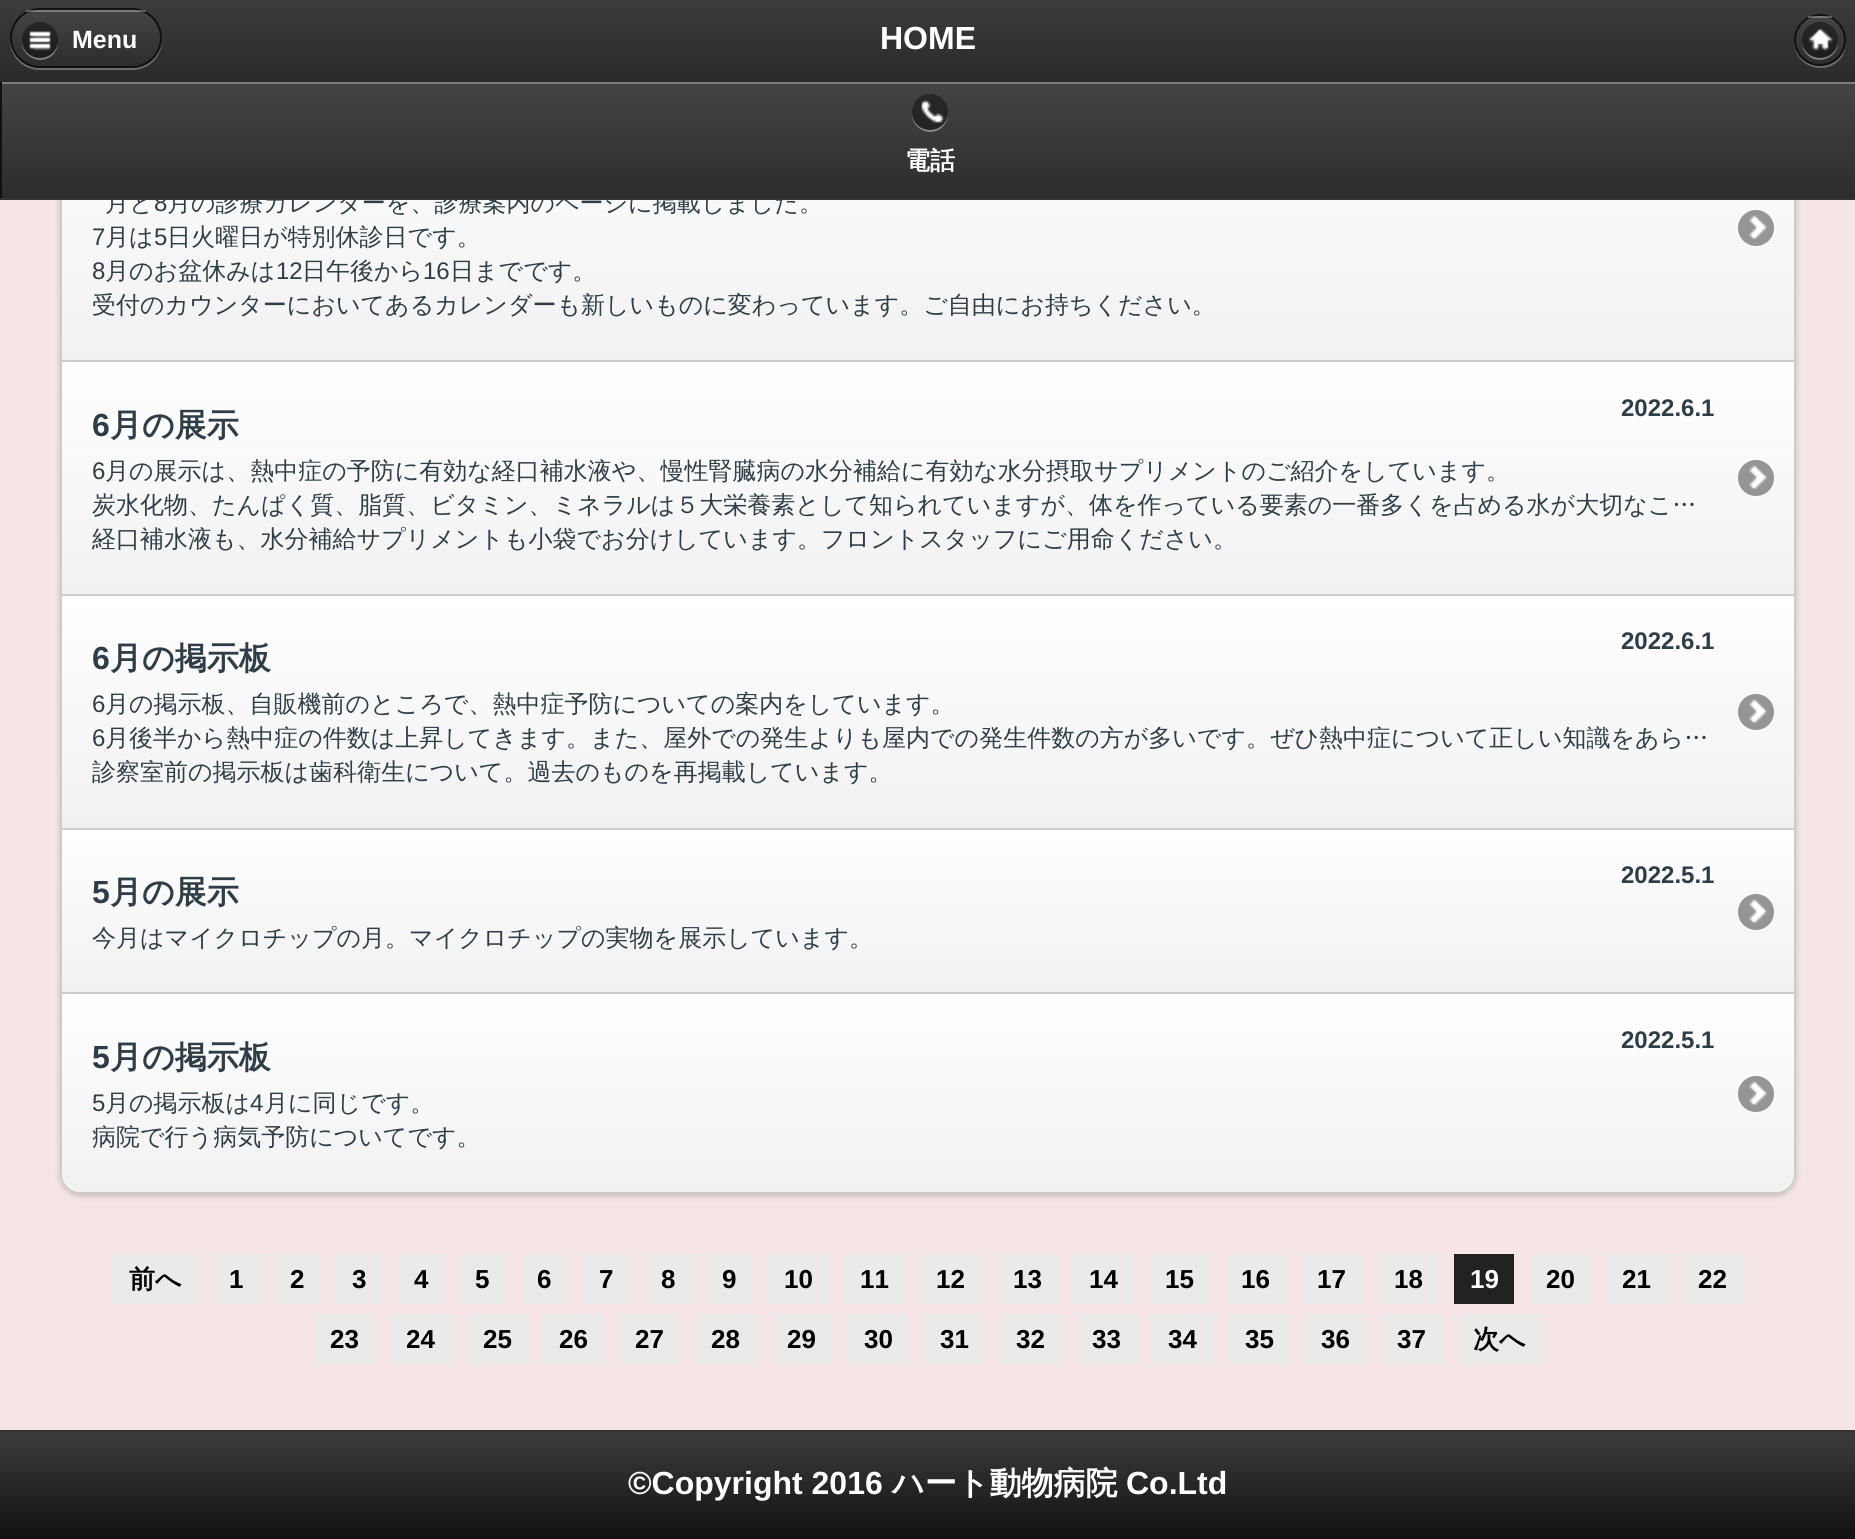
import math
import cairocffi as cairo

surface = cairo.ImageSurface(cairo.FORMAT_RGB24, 1855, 1539)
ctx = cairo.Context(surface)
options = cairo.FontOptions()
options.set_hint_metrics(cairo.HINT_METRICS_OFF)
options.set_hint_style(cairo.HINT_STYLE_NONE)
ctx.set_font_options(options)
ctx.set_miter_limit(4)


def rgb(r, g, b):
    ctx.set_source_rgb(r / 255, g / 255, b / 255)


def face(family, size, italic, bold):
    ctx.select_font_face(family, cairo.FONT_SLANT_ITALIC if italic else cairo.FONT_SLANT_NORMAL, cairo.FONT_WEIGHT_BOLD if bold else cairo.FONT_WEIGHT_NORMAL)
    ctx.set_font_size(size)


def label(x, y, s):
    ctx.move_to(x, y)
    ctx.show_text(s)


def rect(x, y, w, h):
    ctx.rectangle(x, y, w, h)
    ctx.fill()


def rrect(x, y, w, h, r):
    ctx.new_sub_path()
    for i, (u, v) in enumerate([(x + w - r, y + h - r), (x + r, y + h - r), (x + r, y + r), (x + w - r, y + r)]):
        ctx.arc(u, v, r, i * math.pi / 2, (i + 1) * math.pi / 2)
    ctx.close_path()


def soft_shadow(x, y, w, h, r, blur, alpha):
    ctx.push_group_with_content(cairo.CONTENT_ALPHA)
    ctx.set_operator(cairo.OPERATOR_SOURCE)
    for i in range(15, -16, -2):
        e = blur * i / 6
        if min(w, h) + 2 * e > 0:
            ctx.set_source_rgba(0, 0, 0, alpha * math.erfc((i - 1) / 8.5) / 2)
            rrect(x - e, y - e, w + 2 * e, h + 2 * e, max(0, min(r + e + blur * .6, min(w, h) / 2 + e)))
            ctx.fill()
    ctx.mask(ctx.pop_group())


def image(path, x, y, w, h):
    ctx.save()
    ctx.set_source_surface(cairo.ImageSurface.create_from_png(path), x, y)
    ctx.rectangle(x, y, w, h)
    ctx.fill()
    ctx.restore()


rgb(246, 229, 230)
ctx.paint()
rgb(0, 0, 0)
soft_shadow(60, -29, 1736, 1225, 20, 3, 0.2)
gradient = cairo.LinearGradient(928, 0, 928, 198)
gradient.add_color_stop_rgba(0, 0.235, 0.235, 0.235, 1)
gradient.add_color_stop_rgba(1, 0.067, 0.067, 0.067, 1)
ctx.set_source(gradient)
rect(0, 0, 1855, 82)
gradient = cairo.LinearGradient(928, 94, 928, 360)
gradient.add_color_stop_rgba(0, 1, 1, 1, 1)
gradient.add_color_stop_rgba(1, 0.945, 0.945, 0.945, 1)
ctx.set_source(gradient)
rect(62, 200, 1732, 160)
face('WenQuanYi Zen Hei Medium', 24, 0, 0)
rgb(47, 62, 70)
label(105, 211, '月と')
face('Liberation Sans', 24, 0, 0)
label(154, 211, '8')
face('WenQuanYi Zen Hei Medium', 24, 0, 0)
label(167, 211, '月の診療カレンダーを、診療案内のページに掲載しました。')
rgb(51, 51, 51)
rect(0, 198, 1855, 2)
ctx.set_source_rgba(1, 1, 1, 0.3)
ctx.new_path()
ctx.move_to(10, 39)
ctx.line_to(10, 40)
ctx.curve_to(10, 57, 23, 70, 40, 70)
ctx.line_to(132, 70)
ctx.curve_to(149, 70, 162, 57, 162, 40)
ctx.line_to(162, 39)
ctx.curve_to(161, 55, 148, 68, 132, 68)
ctx.line_to(40, 68)
ctx.curve_to(24, 68, 11, 55, 10, 39)
ctx.close_path()
ctx.fill()
gradient = cairo.LinearGradient(86, 10, 86, 66)
gradient.add_color_stop_rgba(0, 0.267, 0.267, 0.267, 1)
gradient.add_color_stop_rgba(1, 0.176, 0.176, 0.176, 1)
ctx.set_source(gradient)
rrect(12, 10, 148, 56, 28)
ctx.fill()
rrect(11, 9, 150, 58, 29)
rgb(17, 17, 17)
ctx.stroke()
ctx.set_source_rgba(1, 1, 1, 0.3)
rect(26, 10, 120, 2)
ctx.set_source_rgba(1, 1, 1, 0.4)
ctx.new_path()
ctx.move_to(22, 41)
ctx.curve_to(21, 59, 45, 67, 55, 52)
ctx.curve_to(57, 49, 58, 45, 58, 41)
ctx.curve_to(56.5, 63.5, 23.5, 63.5, 22, 41)
ctx.close_path()
ctx.fill()
ctx.set_source_rgba(0, 0, 0, 0.4)
ctx.arc(40, 40, 18, 0, 2 * math.pi)
ctx.fill()
image('image0.png', 29, 31, 22, 20)
face('Liberation Sans', 25, 0, 1)
rgb(255, 255, 255)
label(72, 48, 'Menu')
face('Liberation Sans', 32, 0, 1)
label(880, 49, 'HOME')
ctx.set_source_rgba(1, 1, 1, 0.3)
ctx.new_path()
ctx.move_to(1794, 41)
ctx.curve_to(1793, 67, 1827, 78, 1842, 57)
ctx.curve_to(1845, 52, 1846, 46, 1846, 41)
ctx.curve_to(1845, 74, 1795, 74, 1794, 41)
ctx.close_path()
ctx.fill()
gradient = cairo.LinearGradient(1820, 16, 1820, 64)
gradient.add_color_stop_rgba(0, 0.267, 0.267, 0.267, 1)
gradient.add_color_stop_rgba(1, 0.176, 0.176, 0.176, 1)
ctx.set_source(gradient)
ctx.arc(1820, 40, 24, 0, 2 * math.pi)
ctx.fill()
ctx.arc(1820, 40, 25, 0, 2 * math.pi)
rgb(17, 17, 17)
ctx.stroke()
ctx.set_source_rgba(1, 1, 1, 0.3)
rect(1808, 16, 24, 2)
ctx.set_source_rgba(1, 1, 1, 0.4)
ctx.new_path()
ctx.move_to(1838, 41)
ctx.curve_to(1836.5, 63.5, 1803.5, 63.5, 1802, 41)
ctx.curve_to(1802, 45, 1803, 49, 1805, 52)
ctx.curve_to(1815, 67, 1839, 59, 1838, 41)
ctx.close_path()
ctx.fill()
ctx.set_source_rgba(0, 0, 0, 0.4)
ctx.arc(1820, 40, 18, 0, 2 * math.pi)
ctx.fill()
image('image1.png', 1808, 28, 25, 23)
gradient = cairo.LinearGradient(930, 82, 930, 198)
gradient.add_color_stop_rgba(0, 0.267, 0.267, 0.267, 1)
gradient.add_color_stop_rgba(1, 0.176, 0.176, 0.176, 1)
ctx.set_source(gradient)
rect(2, 84, 1853, 114)
rgb(17, 17, 17)
rect(0, 82, 2, 116)
rgb(124, 124, 124)
rect(2, 82, 1853, 2)
ctx.set_source_rgba(1, 1, 1, 0.4)
ctx.new_path()
ctx.move_to(912, 113)
ctx.curve_to(911, 131, 935, 139, 945, 124)
ctx.curve_to(947, 121, 948, 117, 948, 113)
ctx.curve_to(946.5, 135.5, 913.5, 135.5, 912, 113)
ctx.close_path()
ctx.fill()
ctx.set_source_rgba(0, 0, 0, 0.4)
ctx.arc(930, 112, 18, 0, 2 * math.pi)
ctx.fill()
image('image2.png', 921, 99, 24, 24)
face('WenQuanYi Zen Hei', 25, 0, 1)
rgb(255, 255, 255)
label(905, 169, '電話')
rgb(204, 204, 204)
rect(1794, 200, 2, 160)
rect(60, 200, 2, 160)
face('Liberation Sans', 24, 0, 0)
rgb(47, 62, 70)
label(92, 245, '7')
face('WenQuanYi Zen Hei Medium', 24, 0, 0)
label(105, 245, '月は')
face('Liberation Sans', 24, 0, 0)
label(154, 245, '5')
face('WenQuanYi Zen Hei Medium', 24, 0, 0)
label(167, 245, '日火曜日が特別休診日です。')
face('Liberation Sans', 24, 0, 0)
label(92, 279, '8')
face('WenQuanYi Zen Hei Medium', 24, 0, 0)
label(105, 279, '月のお盆休みは')
face('Liberation Sans', 24, 0, 0)
label(276, 279, '12')
face('WenQuanYi Zen Hei Medium', 24, 0, 0)
label(302, 279, '日午後から')
face('Liberation Sans', 24, 0, 0)
label(423, 279, '16')
face('WenQuanYi Zen Hei Medium', 24, 0, 0)
label(450, 279, '日までです。')
label(92, 313, '受付のカウンターにおいてあるカレンダーも新しいものに変わっています。ご自由にお持ちください。')
rgb(250, 250, 250)
ctx.new_path()
ctx.move_to(1774, 229)
ctx.curve_to(1772.5, 251.5, 1739.5, 251.5, 1738, 229)
ctx.curve_to(1738, 233, 1739, 237, 1741, 240)
ctx.curve_to(1751, 255, 1775, 247, 1774, 229)
ctx.close_path()
ctx.fill()
rgb(149, 149, 149)
ctx.arc(1756, 228, 18, 0, 2 * math.pi)
ctx.fill()
image('image3.png', 1749, 215, 18, 25)
gradient = cairo.LinearGradient(928, 362, 928, 594)
gradient.add_color_stop_rgba(0, 1, 1, 1, 1)
gradient.add_color_stop_rgba(1, 0.945, 0.945, 0.945, 1)
ctx.set_source(gradient)
rect(62, 362, 1732, 232)
rgb(204, 204, 204)
rect(60, 360, 1736, 2)
rect(1794, 360, 2, 234)
rect(60, 360, 2, 234)
face('Liberation Sans', 24, 0, 1)
rgb(47, 62, 70)
label(1621, 416, '2022.6.1')
face('Liberation Sans', 32, 0, 1)
label(92, 436, '6')
face('WenQuanYi Zen Hei', 32, 0, 1)
label(110, 436, '月の展示')
face('Liberation Sans', 24, 0, 0)
label(92, 479, '6')
face('WenQuanYi Zen Hei Medium', 24, 0, 0)
label(105, 479, '月の展示は、熱中症の予防に有効な経口補水液や、慢性腎臓病の水分補給に有効な水分摂取サプリメントのご紹介をしています。')
label(92, 513, '炭水化物、たんぱく質、脂質、ビタミン、ミネラルは５大栄養素として知られていますが、体を作っている要素の一番多くを占める水が大切なこ…')
label(92, 547, '経口補水液も、水分補給サプリメントも小袋でお分けしています。フロントスタッフにご用命ください。')
rgb(250, 250, 250)
ctx.new_path()
ctx.move_to(1774, 479)
ctx.curve_to(1772.5, 501.5, 1739.5, 501.5, 1738, 479)
ctx.curve_to(1737, 497, 1761, 505, 1771, 490)
ctx.curve_to(1773, 487, 1774, 483, 1774, 479)
ctx.close_path()
ctx.fill()
rgb(149, 149, 149)
ctx.arc(1756, 478, 18, 0, 2 * math.pi)
ctx.fill()
image('image3.png', 1749, 465, 18, 25)
gradient = cairo.LinearGradient(928, 596, 928, 828)
gradient.add_color_stop_rgba(0, 1, 1, 1, 1)
gradient.add_color_stop_rgba(1, 0.945, 0.945, 0.945, 1)
ctx.set_source(gradient)
rect(62, 596, 1732, 232)
rgb(204, 204, 204)
rect(60, 594, 1736, 2)
rect(1794, 594, 2, 234)
rect(60, 594, 2, 234)
face('Liberation Sans', 24, 0, 1)
rgb(47, 62, 70)
label(1621, 649, '2022.6.1')
face('Liberation Sans', 32, 0, 1)
label(92, 669, '6')
face('WenQuanYi Zen Hei', 32, 0, 1)
label(110, 669, '月の掲示板')
face('Liberation Sans', 24, 0, 0)
label(92, 712, '6')
face('WenQuanYi Zen Hei Medium', 24, 0, 0)
label(105, 712, '月の掲示板、自販機前のところで、熱中症予防についての案内をしています。')
face('Liberation Sans', 24, 0, 0)
label(92, 746, '6')
face('WenQuanYi Zen Hei Medium', 24, 0, 0)
label(105, 746, '月後半から熱中症の件数は上昇してきます。また、屋外での発生よりも屋内での発生件数の方が多いです。ぜひ熱中症について正しい知識をあら…')
label(92, 780, '診察室前の掲示板は歯科衛生について。過去のものを再掲載しています。')
rgb(250, 250, 250)
ctx.new_path()
ctx.move_to(1774, 713)
ctx.curve_to(1772.5, 735.5, 1739.5, 735.5, 1738, 713)
ctx.curve_to(1738, 717, 1739, 721, 1741, 724)
ctx.curve_to(1751, 739, 1775, 731, 1774, 713)
ctx.close_path()
ctx.fill()
rgb(149, 149, 149)
ctx.arc(1756, 712, 18, 0, 2 * math.pi)
ctx.fill()
image('image3.png', 1749, 699, 18, 25)
gradient = cairo.LinearGradient(928, 830, 928, 992)
gradient.add_color_stop_rgba(0, 1, 1, 1, 1)
gradient.add_color_stop_rgba(1, 0.945, 0.945, 0.945, 1)
ctx.set_source(gradient)
rect(62, 830, 1732, 162)
rgb(204, 204, 204)
rect(60, 828, 1736, 2)
rect(1794, 828, 2, 164)
rect(60, 828, 2, 164)
face('Liberation Sans', 24, 0, 1)
rgb(47, 62, 70)
label(1621, 883, '2022.5.1')
face('Liberation Sans', 32, 0, 1)
label(92, 903, '5')
face('WenQuanYi Zen Hei', 32, 0, 1)
label(110, 903, '月の展示')
face('WenQuanYi Zen Hei Medium', 24, 0, 0)
label(92, 946, '今月はマイクロチップの月。マイクロチップの実物を展示しています。')
rgb(250, 250, 250)
ctx.new_path()
ctx.move_to(1774, 913)
ctx.curve_to(1772.5, 935.5, 1739.5, 935.5, 1738, 913)
ctx.curve_to(1738, 917, 1739, 921, 1741, 924)
ctx.curve_to(1751, 939, 1775, 931, 1774, 913)
ctx.close_path()
ctx.fill()
ctx.set_source_rgba(0, 0, 0, 0.4)
ctx.arc(1756, 912, 18, 0, 2 * math.pi)
ctx.fill()
image('image4.png', 1749, 899, 18, 25)
ctx.save()
ctx.new_path()
ctx.move_to(60, 992)
ctx.line_to(1796, 992)
ctx.line_to(1796, 1174)
ctx.curve_to(1796, 1185, 1787, 1194, 1776, 1194)
ctx.line_to(80, 1194)
ctx.curve_to(69, 1194, 60, 1185, 60, 1174)
ctx.close_path()
ctx.clip()
gradient = cairo.LinearGradient(928, 994, 928, 1192)
gradient.add_color_stop_rgba(0, 1, 1, 1, 1)
gradient.add_color_stop_rgba(1, 0.945, 0.945, 0.945, 1)
ctx.set_source(gradient)
rect(60, 994, 1736, 198)
ctx.restore()
ctx.new_path()
ctx.move_to(61, 993)
ctx.line_to(1795, 993)
ctx.line_to(1795, 1174)
ctx.curve_to(1795, 1184.5, 1786.5, 1193, 1776, 1193)
ctx.line_to(80, 1193)
ctx.curve_to(69.5, 1193, 61, 1184.5, 61, 1174)
ctx.close_path()
rgb(204, 204, 204)
ctx.stroke()
face('Liberation Sans', 24, 0, 1)
rgb(47, 62, 70)
label(1621, 1048, '2022.5.1')
face('Liberation Sans', 32, 0, 1)
label(92, 1068, '5')
face('WenQuanYi Zen Hei', 32, 0, 1)
label(110, 1068, '月の掲示板')
face('Liberation Sans', 24, 0, 0)
label(92, 1111, '5')
face('WenQuanYi Zen Hei Medium', 24, 0, 0)
label(105, 1111, '月の掲示板は')
face('Liberation Sans', 24, 0, 0)
label(250, 1111, '4')
face('WenQuanYi Zen Hei Medium', 24, 0, 0)
label(264, 1111, '月に同じです。')
label(92, 1145, '病院で行う病気予防についてです。')
rgb(250, 250, 250)
ctx.new_path()
ctx.move_to(1738, 1095)
ctx.curve_to(1738, 1099, 1739, 1103, 1741, 1106)
ctx.curve_to(1751, 1121, 1775, 1113, 1774, 1095)
ctx.curve_to(1772.5, 1117.5, 1739.5, 1117.5, 1738, 1095)
ctx.close_path()
ctx.fill()
rgb(149, 149, 149)
ctx.arc(1756, 1094, 18, 0, 2 * math.pi)
ctx.fill()
image('image3.png', 1749, 1081, 18, 25)
rgb(234, 234, 234)
rect(112, 1254, 86, 50)
face('WenQuanYi Zen Hei', 26, 0, 1)
rgb(0, 0, 0)
label(129, 1288, '前へ')
rgb(234, 234, 234)
rect(212, 1254, 48, 50)
face('Liberation Sans', 26, 0, 1)
rgb(0, 0, 0)
label(229, 1288, '1')
rgb(234, 234, 234)
rect(274, 1254, 46, 50)
rgb(0, 0, 0)
label(290, 1288, '2')
rgb(234, 234, 234)
rect(336, 1254, 46, 50)
rgb(0, 0, 0)
label(352, 1288, '3')
rgb(234, 234, 234)
rect(398, 1254, 46, 50)
rgb(0, 0, 0)
label(414, 1288, '4')
rgb(234, 234, 234)
rect(460, 1254, 46, 50)
rgb(0, 0, 0)
label(475, 1288, '5')
rgb(234, 234, 234)
rect(522, 1254, 46, 50)
rgb(0, 0, 0)
label(537, 1288, '6')
rgb(234, 234, 234)
rect(582, 1254, 48, 50)
rgb(0, 0, 0)
label(599, 1288, '7')
rgb(234, 234, 234)
rect(644, 1254, 48, 50)
rgb(0, 0, 0)
label(661, 1288, '8')
rgb(234, 234, 234)
rect(706, 1254, 46, 50)
rgb(0, 0, 0)
label(722, 1288, '9')
rgb(234, 234, 234)
rect(768, 1254, 62, 50)
rgb(0, 0, 0)
label(784, 1288, '10')
rgb(234, 234, 234)
rect(844, 1254, 62, 50)
rgb(0, 0, 0)
label(860, 1288, '11')
rgb(234, 234, 234)
rect(920, 1254, 62, 50)
rgb(0, 0, 0)
label(936, 1288, '12')
rgb(234, 234, 234)
rect(996, 1254, 62, 50)
rgb(0, 0, 0)
label(1013, 1288, '13')
rgb(234, 234, 234)
rect(1072, 1254, 62, 50)
rgb(0, 0, 0)
label(1089, 1288, '14')
rgb(234, 234, 234)
rect(1150, 1254, 60, 50)
rgb(0, 0, 0)
label(1165, 1288, '15')
rgb(234, 234, 234)
rect(1226, 1254, 60, 50)
rgb(0, 0, 0)
label(1241, 1288, '16')
rgb(234, 234, 234)
rect(1302, 1254, 60, 50)
rgb(0, 0, 0)
label(1317, 1288, '17')
rgb(234, 234, 234)
rect(1378, 1254, 60, 50)
rgb(0, 0, 0)
label(1394, 1288, '18')
rgb(34, 34, 34)
rect(1454, 1254, 60, 50)
rgb(255, 255, 255)
label(1470, 1288, '19')
rgb(234, 234, 234)
rect(1530, 1254, 60, 50)
rgb(0, 0, 0)
label(1546, 1288, '20')
rgb(234, 234, 234)
rect(1606, 1254, 62, 50)
rgb(0, 0, 0)
label(1622, 1288, '21')
rgb(234, 234, 234)
rect(1682, 1254, 62, 50)
rgb(0, 0, 0)
label(1698, 1288, '22')
rgb(234, 234, 234)
rect(314, 1314, 62, 50)
rgb(0, 0, 0)
label(330, 1348, '23')
rgb(234, 234, 234)
rect(390, 1314, 62, 50)
rgb(0, 0, 0)
label(406, 1348, '24')
rgb(234, 234, 234)
rect(466, 1314, 62, 50)
rgb(0, 0, 0)
label(483, 1348, '25')
rgb(234, 234, 234)
rect(542, 1314, 62, 50)
rgb(0, 0, 0)
label(559, 1348, '26')
rgb(234, 234, 234)
rect(620, 1314, 60, 50)
rgb(0, 0, 0)
label(635, 1348, '27')
rgb(234, 234, 234)
rect(696, 1314, 60, 50)
rgb(0, 0, 0)
label(711, 1348, '28')
rgb(234, 234, 234)
rect(772, 1314, 60, 50)
rgb(0, 0, 0)
label(787, 1348, '29')
rgb(234, 234, 234)
rect(848, 1314, 60, 50)
rgb(0, 0, 0)
label(864, 1348, '30')
rgb(234, 234, 234)
rect(924, 1314, 60, 50)
rgb(0, 0, 0)
label(940, 1348, '31')
rgb(234, 234, 234)
rect(1000, 1314, 60, 50)
rgb(0, 0, 0)
label(1016, 1348, '32')
rgb(234, 234, 234)
rect(1076, 1314, 62, 50)
rgb(0, 0, 0)
label(1092, 1348, '33')
rgb(234, 234, 234)
rect(1152, 1314, 62, 50)
rgb(0, 0, 0)
label(1168, 1348, '34')
rgb(234, 234, 234)
rect(1228, 1314, 62, 50)
rgb(0, 0, 0)
label(1245, 1348, '35')
rgb(234, 234, 234)
rect(1304, 1314, 62, 50)
rgb(0, 0, 0)
label(1321, 1348, '36')
rgb(234, 234, 234)
rect(1380, 1314, 62, 50)
rgb(0, 0, 0)
label(1397, 1348, '37')
rgb(234, 234, 234)
rect(1458, 1314, 84, 50)
face('WenQuanYi Zen Hei', 26, 0, 1)
rgb(0, 0, 0)
label(1473, 1348, '次へ')
gradient = cairo.LinearGradient(928, 1432, 928, 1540)
gradient.add_color_stop_rgba(0, 0.235, 0.235, 0.235, 1)
gradient.add_color_stop_rgba(1, 0.067, 0.067, 0.067, 1)
ctx.set_source(gradient)
rect(0, 1432, 1855, 107)
rgb(51, 51, 51)
rect(0, 1430, 1855, 2)
face('Liberation Sans', 32, 0, 1)
rgb(255, 255, 255)
label(628, 1494, '©Copyright 2016')
face('WenQuanYi Zen Hei', 32, 0, 1)
label(892, 1494, 'ハート動物病院')
face('Liberation Sans', 32, 0, 1)
label(1126, 1494, 'Co.Ltd')
surface.write_to_png('render.png')
